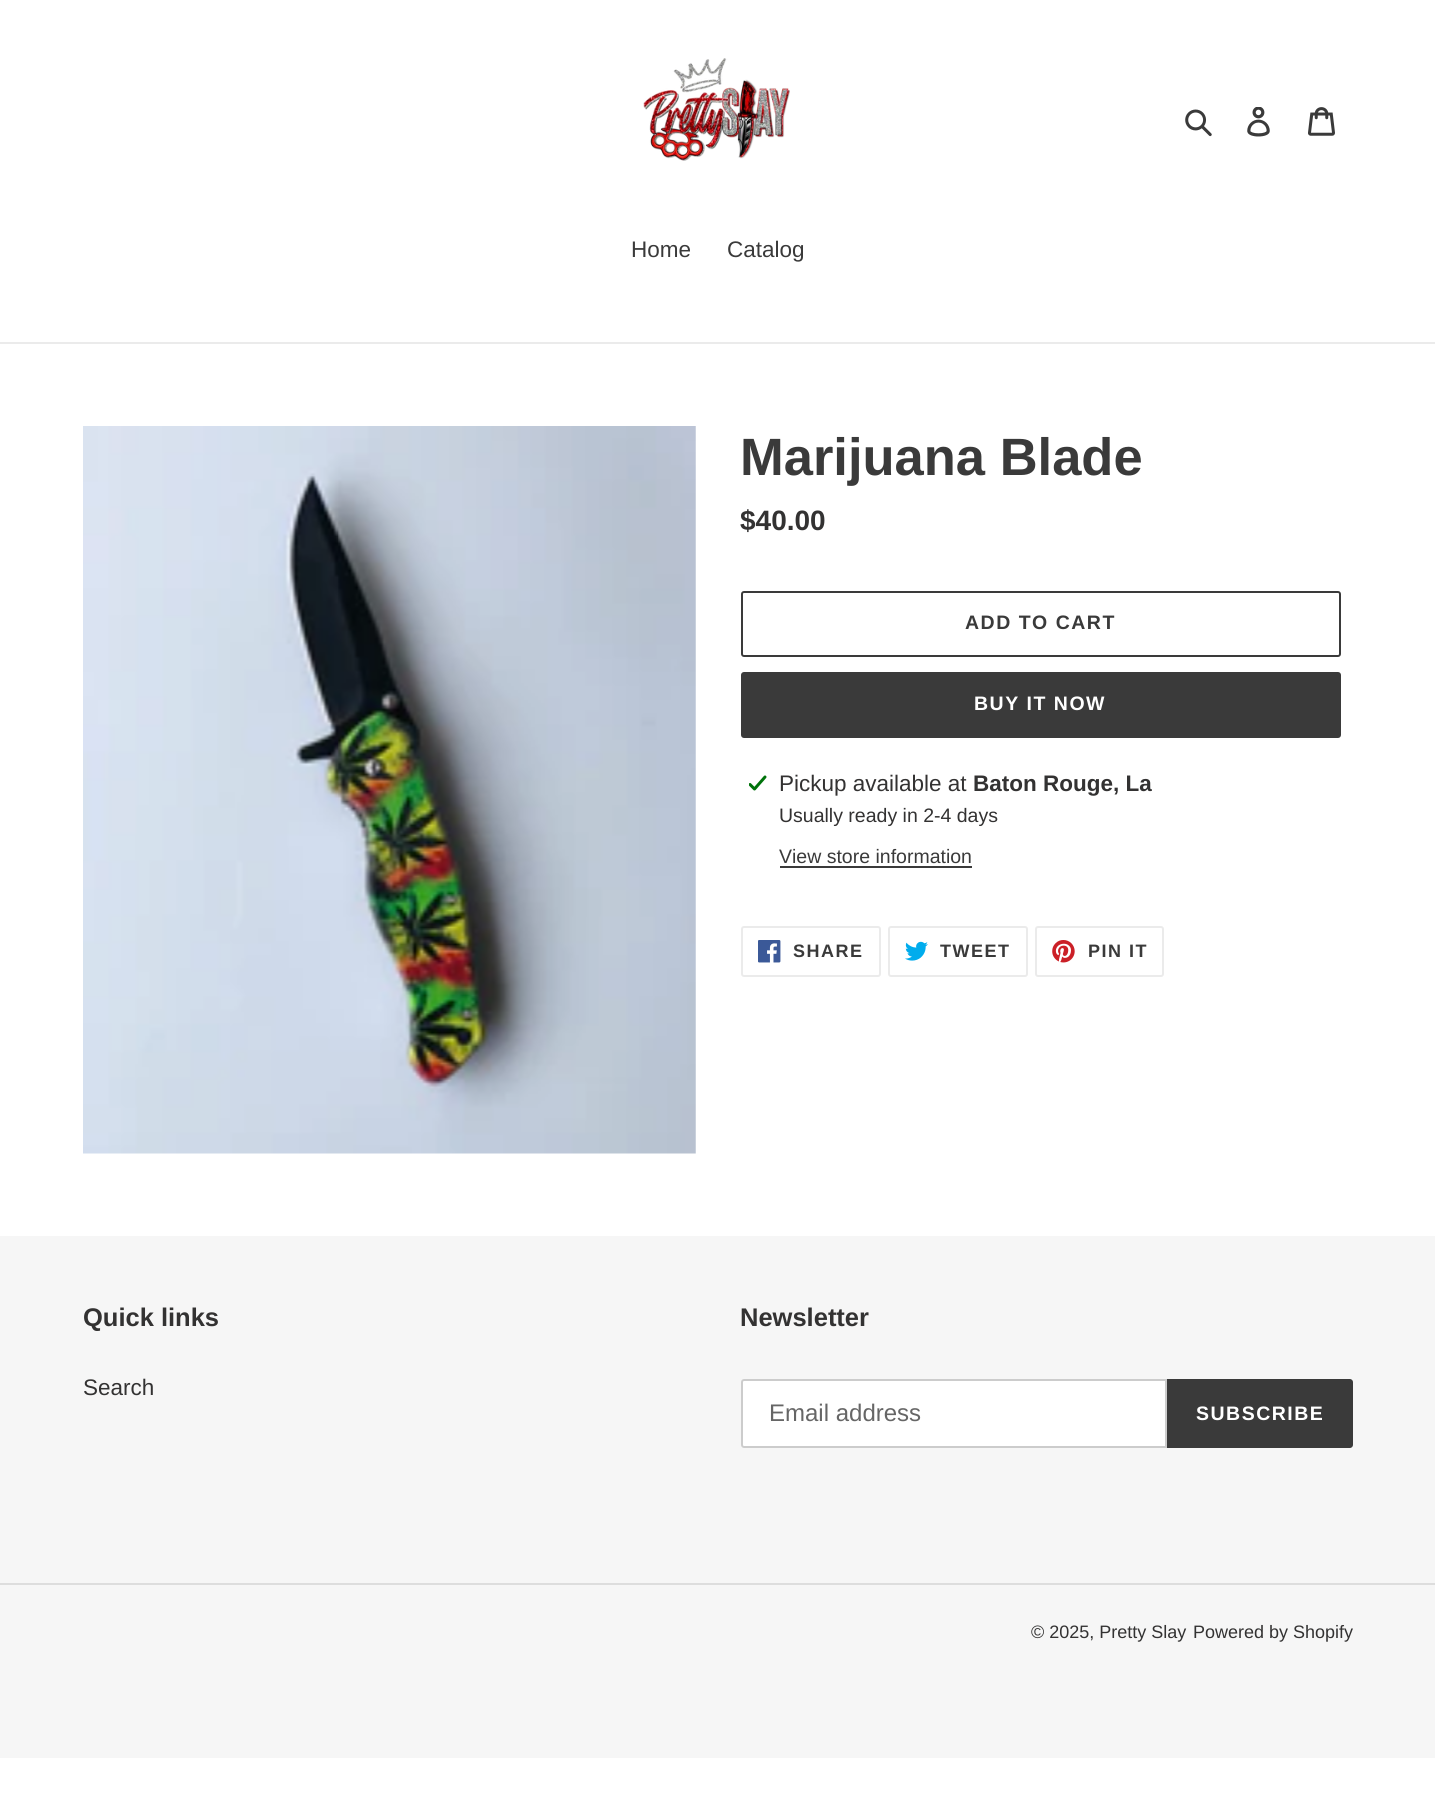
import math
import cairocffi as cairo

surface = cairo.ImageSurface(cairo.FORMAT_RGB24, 1435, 1799)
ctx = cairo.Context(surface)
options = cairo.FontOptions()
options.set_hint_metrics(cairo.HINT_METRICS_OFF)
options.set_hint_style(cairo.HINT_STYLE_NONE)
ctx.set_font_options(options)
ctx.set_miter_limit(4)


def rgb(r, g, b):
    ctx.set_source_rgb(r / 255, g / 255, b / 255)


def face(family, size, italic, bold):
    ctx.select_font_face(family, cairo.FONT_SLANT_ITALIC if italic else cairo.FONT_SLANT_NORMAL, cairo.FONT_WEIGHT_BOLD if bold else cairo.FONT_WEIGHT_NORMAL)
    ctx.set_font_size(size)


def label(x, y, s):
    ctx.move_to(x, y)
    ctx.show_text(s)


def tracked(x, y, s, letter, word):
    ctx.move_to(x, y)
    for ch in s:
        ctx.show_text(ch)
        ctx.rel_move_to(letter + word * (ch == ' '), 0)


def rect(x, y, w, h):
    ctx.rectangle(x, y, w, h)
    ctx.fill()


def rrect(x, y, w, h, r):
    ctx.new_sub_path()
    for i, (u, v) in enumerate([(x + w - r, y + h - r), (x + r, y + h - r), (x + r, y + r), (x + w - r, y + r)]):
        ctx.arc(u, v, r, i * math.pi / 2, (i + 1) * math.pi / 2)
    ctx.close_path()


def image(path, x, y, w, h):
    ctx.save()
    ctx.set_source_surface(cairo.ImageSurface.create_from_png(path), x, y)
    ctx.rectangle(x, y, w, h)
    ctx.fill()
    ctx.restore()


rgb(255, 255, 255)
ctx.paint()
image('image0.png', 643, 58, 147, 103)
image('image1.png', 1185, 109, 27, 28)
image('image2.png', 1247, 107, 23, 30)
image('image3.png', 1308, 107, 27, 29)
rgb(235, 235, 235)
rect(0, 342, 1435, 2)
face('Liberation Sans', 22.5, 0, 0)
rgb(58, 58, 58)
label(631, 257, 'Home')
label(727, 257, 'Catalog')
image('image4.png', 83, 426, 613, 728)
face('Liberation Sans', 52.5, 0, 1)
label(740, 475, 'Marijuana Blade')
face('Liberation Sans', 28, 0, 1)
rgb(51, 50, 50)
label(740, 530, '$40.00')
rrect(742, 592, 598, 64, 2)
rgb(58, 58, 58)
ctx.stroke()
face('Liberation Sans', 19.5, 0, 1)
tracked(965, 629, 'ADD TO CART', 1.5, 0)
rrect(741, 672, 600, 66, 3)
ctx.fill()
rgb(255, 255, 255)
tracked(974, 710, 'BUY IT NOW', 1.5, 0)
image('image5.png', 749, 775, 18, 16)
face('Liberation Sans', 22.5, 0, 0)
rgb(51, 50, 50)
label(779, 791, 'Pickup available at')
face('Liberation Sans', 22.5, 0, 1)
label(973, 791, 'Baton Rouge, La')
face('Liberation Sans', 19.5, 0, 0)
label(779, 822, 'Usually ready in 2-4 days')
rgb(58, 58, 58)
label(779, 863, 'View store information')
rect(780, 866, 192, 2)
rrect(742, 927, 138, 49, 2)
rgb(235, 235, 235)
ctx.stroke()
image('image6.png', 758, 940, 23, 23)
face('Liberation Sans', 18, 0, 1)
rgb(58, 58, 58)
tracked(793, 957, 'SHARE', 1.5, 0)
rrect(889, 927, 138, 49, 2)
rgb(235, 235, 235)
ctx.stroke()
image('image7.png', 905, 941, 23, 20)
rgb(58, 58, 58)
tracked(940, 957, 'TWEET', 1.5, 0)
rrect(1036, 927, 127, 49, 2)
rgb(235, 235, 235)
ctx.stroke()
image('image8.png', 1052, 940, 23, 23)
rgb(58, 58, 58)
tracked(1088, 957, 'PIN IT', 1.5, 0)
rgb(246, 246, 246)
rect(0, 1236, 1435, 522)
face('Liberation Sans', 25.5, 0, 1)
rgb(51, 50, 50)
label(83, 1326, 'Quick links')
face('Liberation Sans', 22.5, 0, 0)
label(83, 1395, 'Search')
face('Liberation Sans', 25.5, 0, 1)
label(740, 1326, 'Newsletter')
rgb(255, 255, 255)
ctx.new_path()
ctx.move_to(744, 1380)
ctx.line_to(1166, 1380)
ctx.line_to(1166, 1447)
ctx.line_to(744, 1447)
ctx.curve_to(743, 1447, 742, 1446, 742, 1445)
ctx.line_to(742, 1382)
ctx.curve_to(742, 1381, 743, 1380, 744, 1380)
ctx.close_path()
ctx.fill_preserve()
rgb(204, 204, 204)
ctx.stroke()
face('Liberation Sans', 24, 0, 0)
rgb(102, 102, 102)
label(769, 1421, 'Email address')
rgb(58, 58, 58)
ctx.new_path()
ctx.move_to(1167, 1379)
ctx.line_to(1350, 1379)
ctx.curve_to(1351.5, 1379, 1353, 1380.5, 1353, 1382)
ctx.line_to(1353, 1445)
ctx.curve_to(1353, 1446.5, 1351.5, 1448, 1350, 1448)
ctx.line_to(1167, 1448)
ctx.close_path()
ctx.fill()
face('Liberation Sans', 19.5, 0, 1)
rgb(255, 255, 255)
tracked(1196, 1420, 'SUBSCRIBE', 1.5, 0)
rgb(221, 221, 221)
rect(0, 1583, 1435, 2)
face('Liberation Sans', 18, 0, 0)
rgb(51, 50, 50)
label(1031, 1638, '© 2025, Pretty Slay')
label(1193, 1638, 'Powered by Shopify')
surface.write_to_png('render.png')
